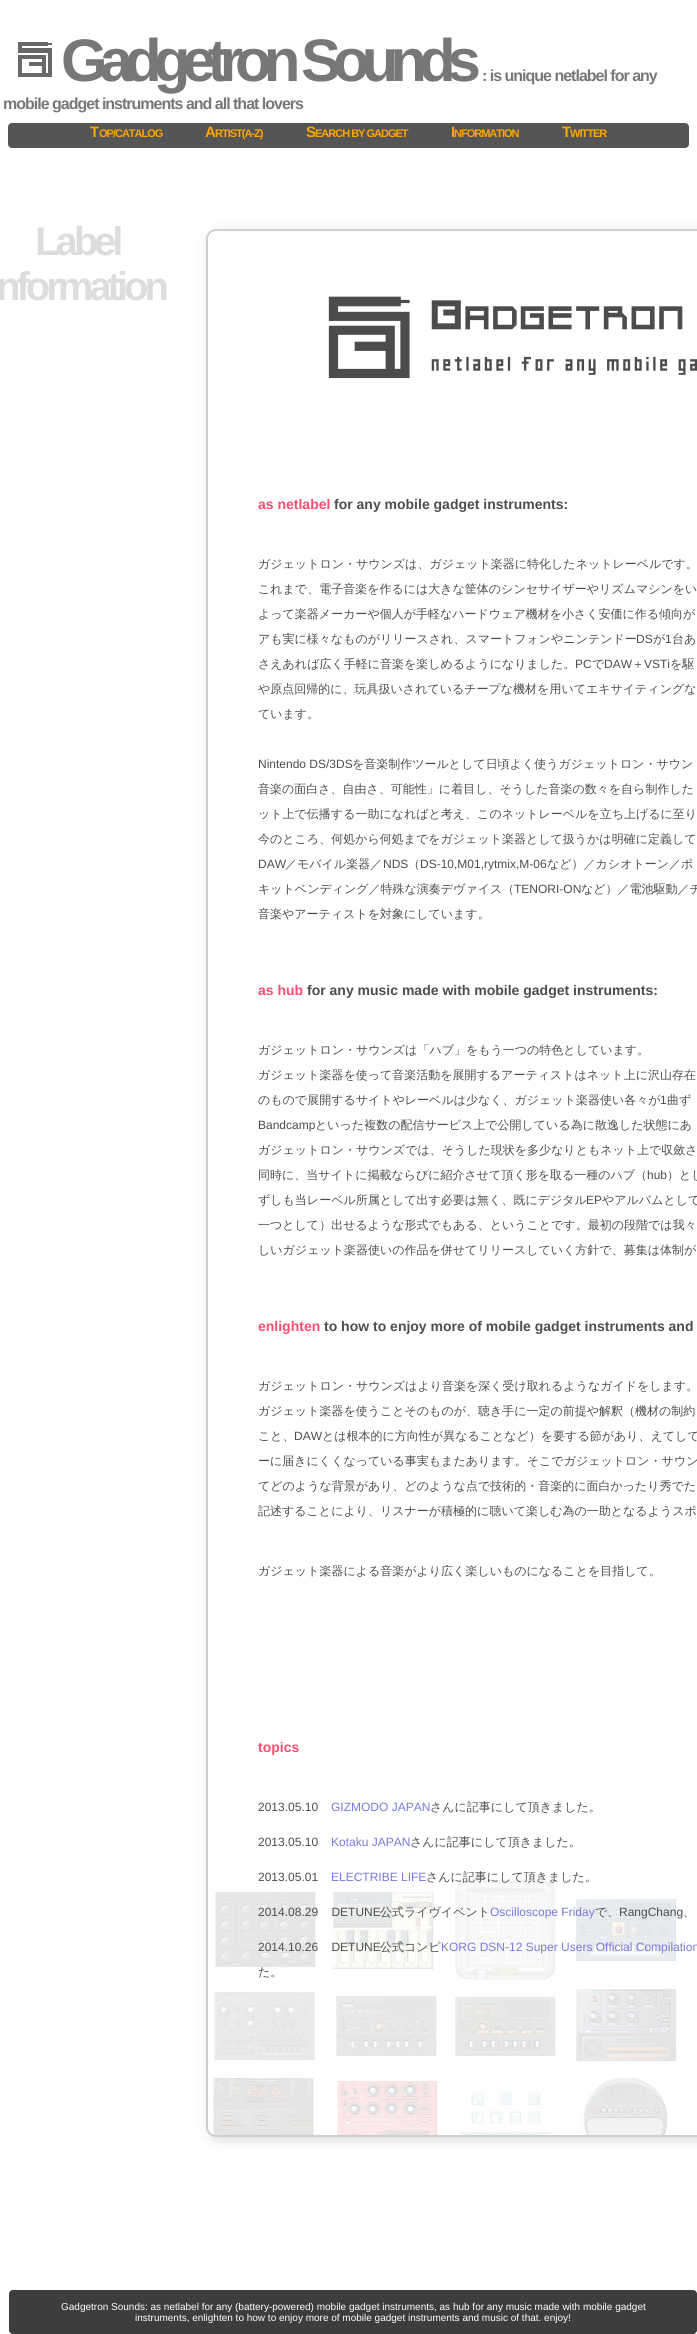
import math
import cairocffi as cairo

surface = cairo.ImageSurface(cairo.FORMAT_RGB24, 697, 2334)
ctx = cairo.Context(surface)
options = cairo.FontOptions()
options.set_hint_metrics(cairo.HINT_METRICS_OFF)
options.set_hint_style(cairo.HINT_STYLE_NONE)
ctx.set_font_options(options)
ctx.set_miter_limit(4)


def rgb(r, g, b):
    ctx.set_source_rgb(r / 255, g / 255, b / 255)


def face(family, size, italic, bold):
    ctx.select_font_face(family, cairo.FONT_SLANT_ITALIC if italic else cairo.FONT_SLANT_NORMAL, cairo.FONT_WEIGHT_BOLD if bold else cairo.FONT_WEIGHT_NORMAL)
    ctx.set_font_size(size)


def label(x, y, s):
    ctx.move_to(x, y)
    ctx.show_text(s)


def tracked(x, y, s, letter, word):
    ctx.move_to(x, y)
    for ch in s:
        ctx.show_text(ch)
        ctx.rel_move_to(letter + word * (ch == ' '), 0)


def rrect(x, y, w, h, r):
    ctx.new_sub_path()
    for i, (u, v) in enumerate([(x + w - r, y + h - r), (x + r, y + h - r), (x + r, y + r), (x + w - r, y + r)]):
        ctx.arc(u, v, r, i * math.pi / 2, (i + 1) * math.pi / 2)
    ctx.close_path()


def soft_shadow(x, y, w, h, r, blur, alpha):
    ctx.push_group_with_content(cairo.CONTENT_ALPHA)
    ctx.set_operator(cairo.OPERATOR_SOURCE)
    for i in range(15, -16, -2):
        e = blur * i / 6
        if min(w, h) + 2 * e > 0:
            ctx.set_source_rgba(0, 0, 0, alpha * math.erfc((i - 1) / 8.5) / 2)
            rrect(x - e, y - e, w + 2 * e, h + 2 * e, max(0, min(r + e + blur * .6, min(w, h) / 2 + e)))
            ctx.fill()
    ctx.mask(ctx.pop_group())


def image(path, x, y, w, h):
    ctx.save()
    ctx.set_source_surface(cairo.ImageSurface.create_from_png(path), x, y)
    ctx.rectangle(x, y, w, h)
    ctx.fill()
    ctx.restore()


rgb(255, 255, 255)
ctx.paint()
image('image0.png', 18, 42, 34, 35)
face('Liberation Sans', 60, 0, 1)
rgb(119, 119, 119)
tracked(61, 81, 'Gadgetron Sounds', -8, 0)
face('Liberation Sans', 16, 0, 1)
tracked(482, 81, ': is unique netlabel for any', -1, 0)
tracked(3, 109, 'mobile gadget instruments and all that lovers', -1, 0)
rgb(85, 85, 85)
rrect(8, 123, 681, 25, 4)
ctx.fill()
face('Liberation Sans', 15, 0, 1)
rgb(255, 165, 0)
tracked(90, 137, 'T', -1, 0)
face('Liberation Sans', 11, 0, 1)
tracked(99, 137, 'OP/CATALOG', -1, 0)
face('Liberation Sans', 15, 0, 1)
tracked(205, 137, 'A', -1, 0)
face('Liberation Sans', 11, 0, 1)
tracked(215, 137, 'RTIST(A-Z)', -1, 0)
face('Liberation Sans', 15, 0, 1)
tracked(306, 137, 'S', -1, 0)
face('Liberation Sans', 11, 0, 1)
tracked(315, 137, 'EARCH BY GADGET', -1, 0)
face('Liberation Sans', 15, 0, 1)
tracked(451, 137, 'I', -1, 0)
face('Liberation Sans', 11, 0, 1)
tracked(454, 137, 'NFORMATION', -1, 0)
face('Liberation Sans', 15, 0, 1)
tracked(562, 137, 'T', -1, 0)
face('Liberation Sans', 11, 0, 1)
tracked(570, 137, 'WITTER', -1, 0)
face('Liberation Sans', 40, 0, 1)
rgb(221, 221, 221)
tracked(35, 255, 'Label', -4, 0)
tracked(-4, 300, 'nformation', -4, 0)
rgb(219, 219, 219)
soft_shadow(209, 232, 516, 1908, 10, 6, 1)
rgb(255, 255, 255)
rrect(206, 229, 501, 1908, 10)
ctx.fill()
image('image1.png', 213, 1880, 467, 257)
rrect(207, 230, 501, 1906, 9)
rgb(207, 207, 207)
ctx.stroke()
image('image2.png', 328, 296, 369, 83)
face('Liberation Sans', 14, 0, 1)
rgb(255, 77, 112)
label(258, 509, 'as netlabel')
rgb(77, 77, 77)
label(334, 509, 'for any mobile gadget instruments:')
face('WenQuanYi Zen Hei Medium', 12, 0, 0)
label(258, 568, 'ガジェットロン・サウンズは、ガジェット楽器に特化したネットレーベルです。')
label(258, 593, 'これまで、電子音楽を作るには大きな筐体のシンセサイザーやリズムマシンをい')
label(258, 618, 'よって楽器メーカーや個人が手軽なハードウェア機材を小さく安価に作る傾向が')
label(258, 643, 'アも実に様々なものがリリースされ、スマートフォンやニンテンドー')
face('Liberation Sans', 12, 0, 0)
label(636, 643, 'DS')
face('WenQuanYi Zen Hei Medium', 12, 0, 0)
label(653, 643, 'が')
face('Liberation Sans', 12, 0, 0)
label(665, 643, '1')
face('WenQuanYi Zen Hei Medium', 12, 0, 0)
label(672, 643, '台あ')
label(258, 668, 'さえあれば広く手軽に音楽を楽しめるようになりました。')
face('Liberation Sans', 12, 0, 0)
label(575, 668, 'PC')
face('WenQuanYi Zen Hei Medium', 12, 0, 0)
label(592, 668, 'で')
face('Liberation Sans', 12, 0, 0)
label(604, 668, 'DAW')
face('WenQuanYi Zen Hei Medium', 12, 0, 0)
label(632, 668, '＋')
face('Liberation Sans', 12, 0, 0)
label(644, 668, 'VSTi')
face('WenQuanYi Zen Hei Medium', 12, 0, 0)
label(670, 668, 'を駆')
label(258, 693, 'や原点回帰的に、玩具扱いされているチープな機材を用いてエキサイティングな')
label(258, 718, 'ています。')
face('Liberation Sans', 12, 0, 0)
label(258, 768, 'Nintendo DS/3DS')
face('WenQuanYi Zen Hei Medium', 12, 0, 0)
label(352, 768, 'を音楽制作ツールとして日頃よく使うガジェットロン・サウン')
label(258, 793, '音楽の面白さ、自由さ、可能性」に着目し、そうした音楽の数々を自ら制作した')
label(258, 818, 'ット上で伝播する一助になればと考え、このネットレーベルを立ち上げるに至り')
label(258, 843, '今のところ、何処から何処までをガジェット楽器として扱うかは明確に定義して')
face('Liberation Sans', 12, 0, 0)
label(258, 868, 'DAW')
face('WenQuanYi Zen Hei Medium', 12, 0, 0)
label(285, 868, '／モバイル楽器／')
face('Liberation Sans', 12, 0, 0)
label(383, 868, 'NDS')
face('WenQuanYi Zen Hei Medium', 12, 0, 0)
label(408, 868, '（')
face('Liberation Sans', 12, 0, 0)
label(420, 868, 'DS-10,M01,rytmix,M-06')
face('WenQuanYi Zen Hei Medium', 12, 0, 0)
label(547, 868, 'など）／カシオトーン／ポ')
label(258, 893, 'キットベンディング／特殊な演奏デヴァイス（')
face('Liberation Sans', 12, 0, 0)
label(514, 893, 'TENORI-ON')
face('WenQuanYi Zen Hei Medium', 12, 0, 0)
label(581, 893, 'など）／電池駆動／チ')
label(258, 918, '音楽やアーティストを対象にしています。')
face('Liberation Sans', 14, 0, 1)
rgb(255, 77, 112)
label(258, 995, 'as hub')
rgb(77, 77, 77)
label(307, 995, 'for any music made with mobile gadget instruments:')
face('WenQuanYi Zen Hei Medium', 12, 0, 0)
label(258, 1054, 'ガジェットロン・サウンズは「ハブ」をもう一つの特色としています。')
label(258, 1079, 'ガジェット楽器を使って音楽活動を展開するアーティストはネット上に沢山存在')
label(258, 1104, 'のもので展開するサイトやレーベルは少なく、ガジェット楽器使い各々が')
face('Liberation Sans', 12, 0, 0)
label(660, 1104, '1')
face('WenQuanYi Zen Hei Medium', 12, 0, 0)
label(667, 1104, '曲ず')
face('Liberation Sans', 12, 0, 0)
label(258, 1129, 'Bandcamp')
face('WenQuanYi Zen Hei Medium', 12, 0, 0)
label(315, 1129, 'といった複数の配信サービス上で公開している為に散逸した状態にあ')
label(258, 1154, 'ガジェットロン・サウンズでは、そうした現状を多少なりともネット上で収斂さ')
label(258, 1179, '同時に、当サイトに掲載ならびに紹介させて頂く形を取る一種のハブ（')
face('Liberation Sans', 12, 0, 0)
label(647, 1179, 'hub')
face('WenQuanYi Zen Hei Medium', 12, 0, 0)
label(667, 1179, '）とし')
label(258, 1204, 'ずしも当レーベル所属として出す必要は無く、既にデジタル')
face('Liberation Sans', 12, 0, 0)
label(586, 1204, 'EP')
face('WenQuanYi Zen Hei Medium', 12, 0, 0)
label(602, 1204, 'やアルバムとして')
label(258, 1229, '一つとして）出せるような形式でもある、ということです。最初の段階では我々')
label(258, 1254, 'しいガジェット楽器使いの作品を併せてリリースしていく方針で、募集は体制が')
face('Liberation Sans', 14, 0, 1)
rgb(255, 77, 112)
label(258, 1331, 'enlighten')
rgb(77, 77, 77)
label(324, 1331, 'to how to enjoy more of mobile gadget instruments and')
face('WenQuanYi Zen Hei Medium', 12, 0, 0)
label(258, 1390, 'ガジェットロン・サウンズはより音楽を深く受け取れるようなガイドをします。')
label(258, 1415, 'ガジェット楽器を使うことそのものが、聴き手に一定の前提や解釈（機材の制約')
label(258, 1440, 'こと、')
face('Liberation Sans', 12, 0, 0)
label(294, 1440, 'DAW')
face('WenQuanYi Zen Hei Medium', 12, 0, 0)
label(322, 1440, 'とは根本的に方向性が異なることなど）を要する節があり、えてして')
label(258, 1465, 'ーに届きにくくなっている事実もまたあります。そこでガジェットロン・サウン')
label(258, 1490, 'てどのような背景があり、どのような点で技術的・音楽的に面白かったり秀でた')
label(258, 1515, '記述することにより、リスナーが積極的に聴いて楽しむ為の一助となるようスポ')
label(258, 1575, 'ガジェット楽器による音楽がより広く楽しいものになることを目指して。')
face('Liberation Sans', 14, 0, 1)
rgb(255, 77, 112)
label(258, 1752, 'topics')
face('Liberation Sans', 12, 0, 0)
rgb(77, 77, 77)
label(258, 1811, '2013.05.10')
rgb(121, 121, 222)
label(331, 1811, 'GIZMODO JAPAN')
face('WenQuanYi Zen Hei Medium', 12, 0, 0)
rgb(77, 77, 77)
label(430, 1811, 'さんに記事にして頂きました。')
face('Liberation Sans', 12, 0, 0)
label(258, 1846, '2013.05.10')
rgb(121, 121, 222)
label(331, 1846, 'Kotaku JAPAN')
face('WenQuanYi Zen Hei Medium', 12, 0, 0)
rgb(77, 77, 77)
label(410, 1846, 'さんに記事にして頂きました。')
face('Liberation Sans', 12, 0, 0)
label(258, 1881, '2013.05.01')
rgb(121, 121, 222)
label(331, 1881, 'ELECTRIBE LIFE')
face('WenQuanYi Zen Hei Medium', 12, 0, 0)
rgb(77, 77, 77)
label(426, 1881, 'さんに記事にして頂きました。')
face('Liberation Sans', 12, 0, 0)
label(258, 1916, '2014.08.29    DETUNE')
face('WenQuanYi Zen Hei Medium', 12, 0, 0)
label(380, 1916, '公式ライヴイベント')
face('Liberation Sans', 12, 0, 0)
rgb(121, 121, 222)
label(490, 1916, 'Oscilloscope Friday')
face('WenQuanYi Zen Hei Medium', 12, 0, 0)
rgb(77, 77, 77)
label(595, 1916, 'で、')
face('Liberation Sans', 12, 0, 0)
label(619, 1916, 'RangChang')
face('WenQuanYi Zen Hei Medium', 12, 0, 0)
label(683, 1916, '、')
face('Liberation Sans', 12, 0, 0)
label(258, 1951, '2014.10.26    DETUNE')
face('WenQuanYi Zen Hei Medium', 12, 0, 0)
label(380, 1951, '公式コンピ')
face('Liberation Sans', 12, 0, 0)
rgb(121, 121, 222)
label(441, 1951, 'KORG DSN-12 Super Users Official Compilation')
face('WenQuanYi Zen Hei Medium', 12, 0, 0)
rgb(77, 77, 77)
label(258, 1976, 'た。')
rgb(61, 61, 61)
rrect(9, 2290, 688, 44, 4)
ctx.fill()
face('Liberation Sans', 10, 0, 0)
rgb(255, 255, 255)
label(61, 2310, 'Gadgetron Sounds: as netlabel for any (battery-powered) mobile gadget instruments, as hub for any music made with mobile gadget')
label(135, 2321, 'instruments, enlighten to how to enjoy more of mobile gadget instruments and music of that. enjoy!')
surface.write_to_png('render.png')
